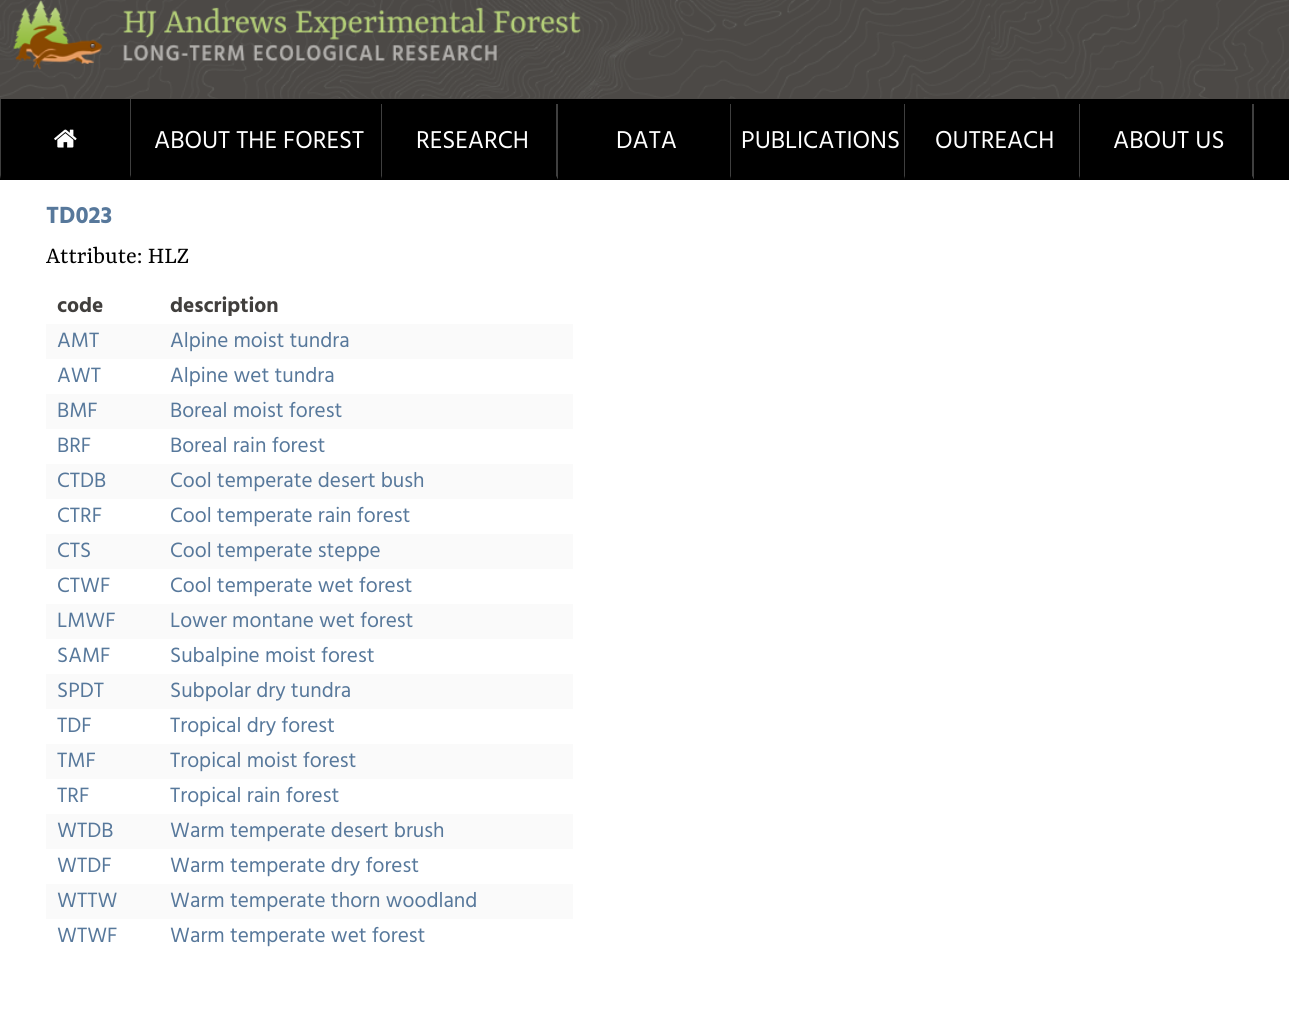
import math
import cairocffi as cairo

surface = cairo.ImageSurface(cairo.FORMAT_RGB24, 1289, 1035)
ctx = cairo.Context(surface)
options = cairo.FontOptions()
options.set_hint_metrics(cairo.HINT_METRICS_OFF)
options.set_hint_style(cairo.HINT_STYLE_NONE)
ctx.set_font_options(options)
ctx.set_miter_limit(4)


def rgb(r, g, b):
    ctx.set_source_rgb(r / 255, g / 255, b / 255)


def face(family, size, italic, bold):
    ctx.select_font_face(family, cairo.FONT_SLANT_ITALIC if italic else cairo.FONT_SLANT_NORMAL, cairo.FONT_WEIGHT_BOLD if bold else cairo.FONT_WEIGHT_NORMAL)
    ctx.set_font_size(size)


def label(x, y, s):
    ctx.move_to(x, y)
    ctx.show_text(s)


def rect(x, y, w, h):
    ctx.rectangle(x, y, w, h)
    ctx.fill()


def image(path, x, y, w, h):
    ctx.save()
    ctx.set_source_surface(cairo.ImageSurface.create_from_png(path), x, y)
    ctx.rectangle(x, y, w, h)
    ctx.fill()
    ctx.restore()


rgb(255, 255, 255)
ctx.paint()
rgb(76, 73, 70)
rect(0, 0, 1289, 99)
image('image0.png', 0, 0, 1289, 99)
image('image1.png', 13, 0, 568, 70)
rgb(0, 0, 0)
rect(0, 99, 1289, 81)
rgb(63, 63, 63)
ctx.new_path()
ctx.move_to(131, 99)
ctx.line_to(131, 179)
ctx.line_to(130, 175)
ctx.line_to(130, 99)
ctx.close_path()
ctx.fill()
rgb(0, 0, 0)
ctx.new_path()
ctx.move_to(131, 179)
ctx.line_to(0, 179)
ctx.line_to(1, 175)
ctx.line_to(130, 175)
ctx.close_path()
ctx.fill()
rgb(63, 63, 63)
ctx.new_path()
ctx.move_to(0, 179)
ctx.line_to(0, 99)
ctx.line_to(1, 99)
ctx.line_to(1, 175)
ctx.close_path()
ctx.fill()
image('image2.png', 54, 129, 23, 19)
ctx.new_path()
ctx.move_to(382, 104)
ctx.line_to(382, 180)
ctx.line_to(381, 176)
ctx.line_to(381, 104)
ctx.close_path()
ctx.fill()
rgb(0, 0, 0)
ctx.new_path()
ctx.move_to(382, 180)
ctx.line_to(136, 180)
ctx.line_to(136, 176)
ctx.line_to(381, 176)
ctx.close_path()
ctx.fill()
face('Hind', 25, 0, 0)
rgb(255, 255, 255)
label(154, 148, 'ABOUT THE FOREST')
rgb(63, 63, 63)
ctx.new_path()
ctx.move_to(558, 104)
ctx.line_to(558, 180)
ctx.line_to(556, 176)
ctx.line_to(556, 104)
ctx.close_path()
ctx.fill()
rgb(0, 0, 0)
ctx.new_path()
ctx.move_to(558, 180)
ctx.line_to(389, 180)
ctx.line_to(389, 176)
ctx.line_to(556, 176)
ctx.close_path()
ctx.fill()
rgb(255, 255, 255)
label(416, 148, 'RESEARCH')
rgb(63, 63, 63)
ctx.new_path()
ctx.move_to(731, 104)
ctx.line_to(731, 180)
ctx.line_to(730, 176)
ctx.line_to(730, 104)
ctx.close_path()
ctx.fill()
rgb(0, 0, 0)
ctx.new_path()
ctx.move_to(731, 180)
ctx.line_to(562, 180)
ctx.line_to(562, 176)
ctx.line_to(730, 176)
ctx.close_path()
ctx.fill()
rgb(255, 255, 255)
label(616, 148, 'DATA')
rgb(63, 63, 63)
ctx.new_path()
ctx.move_to(905, 104)
ctx.line_to(905, 180)
ctx.line_to(904, 176)
ctx.line_to(904, 104)
ctx.close_path()
ctx.fill()
rgb(0, 0, 0)
ctx.new_path()
ctx.move_to(905, 180)
ctx.line_to(736, 180)
ctx.line_to(736, 176)
ctx.line_to(904, 176)
ctx.close_path()
ctx.fill()
rgb(255, 255, 255)
label(741, 148, 'PUBLICATIONS')
rgb(63, 63, 63)
ctx.new_path()
ctx.move_to(1080, 104)
ctx.line_to(1080, 180)
ctx.line_to(1079, 176)
ctx.line_to(1079, 104)
ctx.close_path()
ctx.fill()
rgb(0, 0, 0)
ctx.new_path()
ctx.move_to(1080, 180)
ctx.line_to(911, 180)
ctx.line_to(911, 176)
ctx.line_to(1079, 176)
ctx.close_path()
ctx.fill()
rgb(255, 255, 255)
label(935, 148, 'OUTREACH')
rgb(63, 63, 63)
ctx.new_path()
ctx.move_to(1254, 104)
ctx.line_to(1254, 180)
ctx.line_to(1252, 176)
ctx.line_to(1252, 104)
ctx.close_path()
ctx.fill()
rgb(0, 0, 0)
ctx.new_path()
ctx.move_to(1254, 180)
ctx.line_to(1085, 180)
ctx.line_to(1085, 176)
ctx.line_to(1252, 176)
ctx.close_path()
ctx.fill()
rgb(255, 255, 255)
label(1113, 148, 'ABOUT US')
face('Hind', 24, 0, 1)
rgb(87, 120, 155)
label(46, 223, 'TD023')
face('Yrsa', 25, 0, 0)
rgb(0, 0, 0)
label(46, 263, 'Attribute: HLZ')
face('Hind', 21.25, 0, 1)
rgb(65, 63, 61)
label(57, 312, 'code')
label(170, 312, 'description')
rgb(250, 250, 250)
rect(46, 324, 527, 35)
face('Hind', 21.25, 0, 0)
rgb(87, 120, 155)
label(57, 347, 'AMT')
label(170, 347, 'Alpine moist tundra')
label(57, 382, 'AWT')
label(170, 382, 'Alpine wet tundra')
rgb(250, 250, 250)
rect(46, 394, 527, 35)
rgb(87, 120, 155)
label(57, 417, 'BMF')
label(170, 417, 'Boreal moist forest')
label(57, 452, 'BRF')
label(170, 452, 'Boreal rain forest')
rgb(250, 250, 250)
rect(46, 464, 527, 35)
rgb(87, 120, 155)
label(57, 487, 'CTDB')
label(170, 487, 'Cool temperate desert bush')
label(57, 522, 'CTRF')
label(170, 522, 'Cool temperate rain forest')
rgb(250, 250, 250)
rect(46, 534, 527, 35)
rgb(87, 120, 155)
label(57, 557, 'CTS')
label(170, 557, 'Cool temperate steppe')
label(57, 592, 'CTWF')
label(170, 592, 'Cool temperate wet forest')
rgb(250, 250, 250)
rect(46, 604, 527, 35)
rgb(87, 120, 155)
label(57, 627, 'LMWF')
label(170, 627, 'Lower montane wet forest')
label(57, 662, 'SAMF')
label(170, 662, 'Subalpine moist forest')
rgb(250, 250, 250)
rect(46, 674, 527, 35)
rgb(87, 120, 155)
label(57, 697, 'SPDT')
label(170, 697, 'Subpolar dry tundra')
label(57, 732, 'TDF')
label(170, 732, 'Tropical dry forest')
rgb(250, 250, 250)
rect(46, 744, 527, 35)
rgb(87, 120, 155)
label(57, 767, 'TMF')
label(170, 767, 'Tropical moist forest')
label(57, 802, 'TRF')
label(170, 802, 'Tropical rain forest')
rgb(250, 250, 250)
rect(46, 814, 527, 35)
rgb(87, 120, 155)
label(57, 837, 'WTDB')
label(170, 837, 'Warm temperate desert brush')
label(57, 872, 'WTDF')
label(170, 872, 'Warm temperate dry forest')
rgb(250, 250, 250)
rect(46, 884, 527, 35)
rgb(87, 120, 155)
label(57, 907, 'WTTW')
label(170, 907, 'Warm temperate thorn woodland')
label(57, 942, 'WTWF')
label(170, 942, 'Warm temperate wet forest')
surface.write_to_png('render.png')
